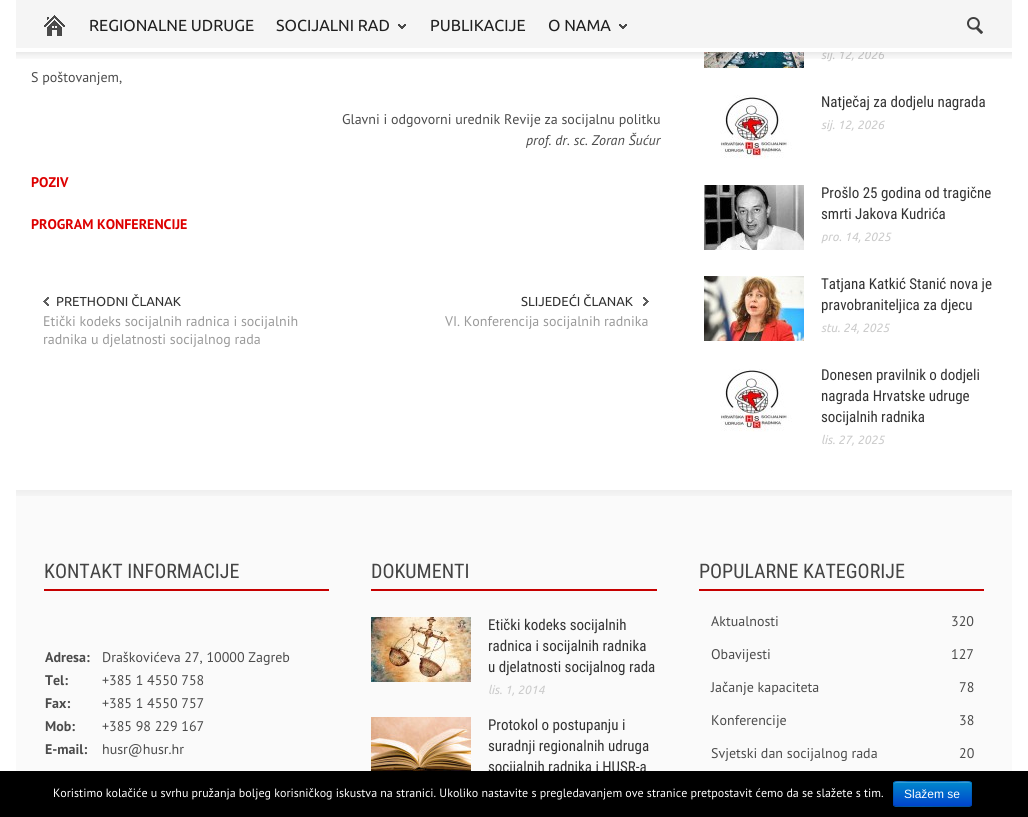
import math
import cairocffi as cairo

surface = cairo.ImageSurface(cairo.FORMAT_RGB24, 1028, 817)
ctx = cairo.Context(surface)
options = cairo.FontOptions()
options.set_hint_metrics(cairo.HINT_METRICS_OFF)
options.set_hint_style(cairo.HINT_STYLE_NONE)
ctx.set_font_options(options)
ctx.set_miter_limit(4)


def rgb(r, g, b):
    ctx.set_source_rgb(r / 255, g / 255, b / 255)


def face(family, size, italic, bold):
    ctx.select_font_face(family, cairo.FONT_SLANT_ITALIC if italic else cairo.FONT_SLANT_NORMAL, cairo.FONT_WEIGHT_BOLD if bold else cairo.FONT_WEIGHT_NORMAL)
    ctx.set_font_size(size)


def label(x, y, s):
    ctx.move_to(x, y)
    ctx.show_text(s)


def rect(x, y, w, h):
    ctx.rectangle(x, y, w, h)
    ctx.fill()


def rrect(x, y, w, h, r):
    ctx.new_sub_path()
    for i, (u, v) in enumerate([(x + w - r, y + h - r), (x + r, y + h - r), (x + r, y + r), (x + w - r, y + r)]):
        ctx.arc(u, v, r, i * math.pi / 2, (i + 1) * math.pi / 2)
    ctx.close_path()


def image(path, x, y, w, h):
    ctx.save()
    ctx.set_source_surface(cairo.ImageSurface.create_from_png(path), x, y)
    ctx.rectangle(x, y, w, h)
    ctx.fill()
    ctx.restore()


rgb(255, 255, 255)
ctx.paint()
rgb(245, 245, 245)
rect(16, 0, 996, 48)
face('Ubuntu', 12, 1, 0)
rgb(203, 203, 203)
label(821, 59, 'sij. 12, 2026')
rgb(255, 255, 255)
rect(828, 50, 57, 2)
image('image0.png', 44, 15, 21, 21)
face('Ubuntu', 16, 0, 0)
rgb(32, 32, 32)
label(89, 31, 'REGIONALNE UDRUGE')
label(276, 31, 'SOCIJALNI RAD')
image('image1.png', 398, 24, 8, 5)
label(430, 31, 'PUBLIKACIJE')
label(548, 31, 'O NAMA')
image('image1.png', 619, 24, 8, 5)
image('image2.png', 967, 17, 16, 17)
image('image6.png', 704, 52, 100, 16)
image('image3.png', 16, 52, 996, 7)
face('PT Sans', 14, 0, 0)
rgb(75, 75, 75)
label(31, 82, 'S poštovanjem,')
label(342, 124, 'Glavni i odgovorni urednik Revije za socijalnu politku')
face('PT Sans', 14, 1, 0)
label(526, 145, 'prof. dr. sc. Zoran Šućur')
face('PT Sans', 14, 0, 1)
rgb(221, 0, 0)
label(31, 187, 'POZIV')
label(31, 229, 'PROGRAM KONFERENCIJE')
image('image4.png', 43, 297, 6, 9)
face('Ubuntu', 13, 0, 0)
rgb(51, 51, 51)
label(56, 306, 'PRETHODNI ČLANAK')
face('PT Sans', 14, 0, 0)
rgb(154, 154, 154)
label(43, 326, 'Etički kodeks socijalnih radnica i socijalnih')
label(43, 344, 'radnika u djelatnosti socijalnog rada')
face('Ubuntu', 13, 0, 0)
rgb(51, 51, 51)
label(521, 306, 'SLIJEDEĆI ČLANAK')
image('image5.png', 643, 297, 6, 9)
face('PT Sans', 14, 0, 0)
rgb(154, 154, 154)
label(445, 326, 'VI. Konferencija socijalnih radnika')
image('image7.png', 720, 95, 72, 64)
face('Roboto Condensed', 15, 0, 0)
rgb(51, 51, 51)
label(821, 107, 'Natječaj za dodjelu nagrada')
face('Ubuntu', 12, 1, 0)
rgb(203, 203, 203)
label(821, 129, 'sij. 12, 2026')
image('image8.png', 704, 185, 100, 65)
face('Roboto Condensed', 15, 0, 0)
rgb(51, 51, 51)
label(821, 198, 'Prošlo 25 godina od tragične')
label(821, 219, 'smrti Jakova Kudrića')
face('Ubuntu', 12, 1, 0)
rgb(203, 203, 203)
label(821, 241, 'pro. 14, 2025')
image('image9.png', 704, 276, 100, 65)
face('Roboto Condensed', 15, 0, 0)
rgb(51, 51, 51)
label(821, 289, 'Tatjana Katkić Stanić nova je')
label(821, 310, 'pravobraniteljica za djecu')
face('Ubuntu', 12, 1, 0)
rgb(203, 203, 203)
label(821, 332, 'stu. 24, 2025')
image('image10.png', 720, 369, 72, 63)
face('Roboto Condensed', 15, 0, 0)
rgb(51, 51, 51)
label(821, 380, 'Donesen pravilnik o dodjeli')
label(821, 401, 'nagrada Hrvatske udruge')
label(821, 422, 'socijalnih radnika')
face('Ubuntu', 12, 1, 0)
rgb(203, 203, 203)
label(821, 444, 'lis. 27, 2025')
rgb(250, 250, 250)
rect(16, 490, 996, 281)
image('image11.png', 16, 490, 996, 6)
rgb(198, 0, 0)
rect(44, 589, 285, 2)
face('Roboto Condensed', 20, 0, 0)
rgb(68, 68, 68)
label(44, 578, 'KONTAKT INFORMACIJE')
face('PT Sans', 14, 0, 1)
rgb(75, 75, 75)
label(45, 662, 'Adresa:')
face('PT Sans', 14, 0, 0)
label(102, 662, 'Draškovićeva 27, 10000 Zagreb')
face('PT Sans', 14, 0, 1)
label(45, 685, 'Tel:')
face('PT Sans', 14, 0, 0)
label(102, 685, '+385 1 4550 758')
face('PT Sans', 14, 0, 1)
label(45, 708, 'Fax:')
face('PT Sans', 14, 0, 0)
label(102, 708, '+385 1 4550 757')
face('PT Sans', 14, 0, 1)
label(45, 731, 'Mob:')
face('PT Sans', 14, 0, 0)
label(102, 731, '+385 98 229 167')
face('PT Sans', 14, 0, 1)
label(45, 754, 'E-mail:')
face('PT Sans', 14, 0, 0)
label(102, 754, 'husr@husr.hr')
rgb(198, 0, 0)
rect(371, 589, 286, 2)
face('Roboto Condensed', 20, 0, 0)
rgb(68, 68, 68)
label(371, 578, 'DOKUMENTI')
image('image12.png', 371, 617, 100, 65)
face('Roboto Condensed', 15, 0, 0)
rgb(51, 51, 51)
label(488, 630, 'Etički kodeks socijalnih')
label(488, 651, 'radnica i socijalnih radnika')
label(488, 672, 'u djelatnosti socijalnog rada')
face('Ubuntu', 12, 1, 0)
rgb(203, 203, 203)
label(488, 694, 'lis. 1, 2014')
image('image13.png', 371, 717, 100, 54)
face('Roboto Condensed', 15, 0, 0)
rgb(51, 51, 51)
label(488, 730, 'Protokol o postupanju i')
label(488, 751, 'suradnji regionalnih udruga')
label(488, 772, 'socijalnih radnika i HUSR-a')
rgb(198, 0, 0)
rect(699, 589, 285, 2)
face('Roboto Condensed', 20, 0, 0)
rgb(68, 68, 68)
label(699, 578, 'POPULARNE KATEGORIJE')
face('PT Sans', 14, 0, 0)
rgb(75, 75, 75)
label(711, 626, 'Aktualnosti')
label(951, 626, '320')
label(711, 659, 'Obavijesti')
label(951, 659, '127')
label(711, 692, 'Jačanje kapaciteta')
label(959, 692, '78')
label(711, 725, 'Konferencije')
label(959, 725, '38')
label(711, 758, 'Svjetski dan socijalnog rada')
label(959, 758, '20')
rgb(0, 0, 0)
rect(0, 771, 1028, 46)
face('PT Sans', 12, 0, 0)
rgb(255, 255, 255)
label(53, 797, 'Koristimo kolačiće u svrhu pružanja boljeg korisničkog iskustva na stranici. Ukoliko nastavite s pregledavanjem ove stranice pretpostavit ćemo da se slažete s tim.')
rgb(0, 109, 204)
rrect(893, 781, 79, 26, 3)
ctx.fill()
ctx.save()
rrect(893, 781, 79, 26, 3)
ctx.clip()
gradient = cairo.LinearGradient(933, 782, 933, 806)
gradient.add_color_stop_rgba(0, 0, 0.533, 0.8, 1)
gradient.add_color_stop_rgba(1, 0, 0.267, 0.8, 1)
ctx.set_source(gradient)
rect(893, 782, 79, 24)
ctx.restore()
ctx.set_source_rgba(1, 1, 1, 0.2)
ctx.new_path()
ctx.move_to(896, 783)
ctx.line_to(969, 783)
ctx.curve_to(970, 783, 971, 784, 971, 785)
ctx.curve_to(971, 779, 960, 782, 957, 782)
ctx.line_to(908, 782)
ctx.curve_to(905, 782, 894, 779, 894, 785)
ctx.curve_to(894, 784, 895, 783, 896, 783)
ctx.close_path()
ctx.fill()
ctx.new_path()
ctx.move_to(971, 806)
ctx.line_to(969, 806.5)
ctx.line_to(957, 806.5)
ctx.curve_to(950, 806.5, 896.5, 807.5, 894.5, 806)
ctx.line_to(894, 806)
ctx.set_source_rgba(0, 0, 0, 0.25)
ctx.set_line_width(1)
ctx.stroke()
ctx.new_path()
ctx.move_to(894, 806)
ctx.curve_to(892.5, 804, 893.5, 796.5, 893.5, 794)
ctx.curve_to(893.5, 778.5, 891.5, 781.5, 908, 781.5)
ctx.line_to(957, 781.5)
ctx.curve_to(975, 781.5, 971.5, 779, 971.5, 797.5)
ctx.curve_to(971.5, 799.5, 972.5, 804, 971, 806)
ctx.set_source_rgba(0, 0, 0, 0.1)
ctx.stroke()
face('Liberation Sans', 12, 0, 0)
rgb(255, 255, 255)
label(904, 798, 'Slažem se')
surface.write_to_png('render.png')
